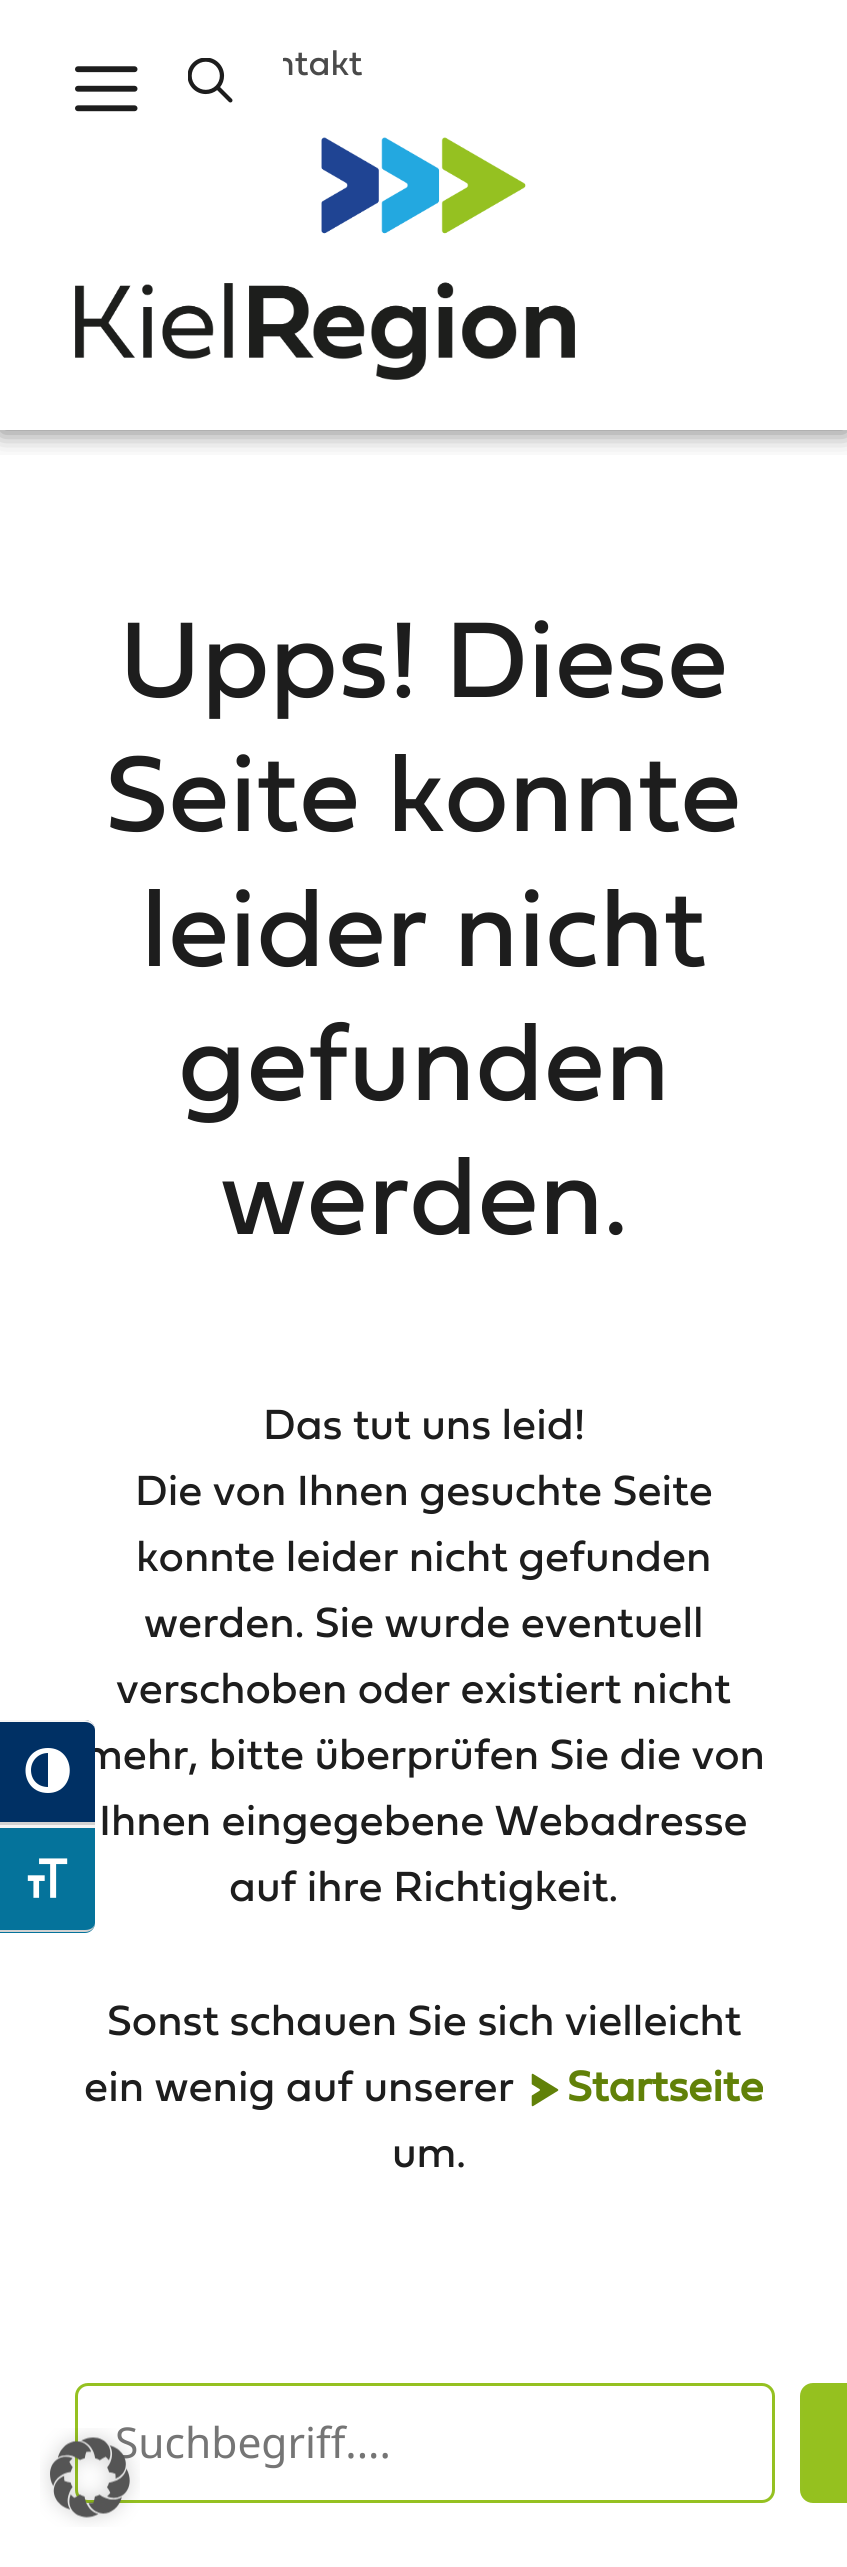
import math
import cairocffi as cairo

surface = cairo.ImageSurface(cairo.FORMAT_RGB24, 847, 2567)
ctx = cairo.Context(surface)
options = cairo.FontOptions()
options.set_hint_metrics(cairo.HINT_METRICS_OFF)
options.set_hint_style(cairo.HINT_STYLE_NONE)
ctx.set_font_options(options)
ctx.set_miter_limit(4)


def rgb(r, g, b):
    ctx.set_source_rgb(r / 255, g / 255, b / 255)


def face(family, size, italic, bold):
    ctx.select_font_face(family, cairo.FONT_SLANT_ITALIC if italic else cairo.FONT_SLANT_NORMAL, cairo.FONT_WEIGHT_BOLD if bold else cairo.FONT_WEIGHT_NORMAL)
    ctx.set_font_size(size)


def label(x, y, s):
    ctx.move_to(x, y)
    ctx.show_text(s)


def rect(x, y, w, h):
    ctx.rectangle(x, y, w, h)
    ctx.fill()


def rrect(x, y, w, h, r):
    ctx.new_sub_path()
    for i, (u, v) in enumerate([(x + w - r, y + h - r), (x + r, y + h - r), (x + r, y + r), (x + w - r, y + r)]):
        ctx.arc(u, v, r, i * math.pi / 2, (i + 1) * math.pi / 2)
    ctx.close_path()


def soft_shadow(x, y, w, h, r, blur, alpha):
    ctx.push_group_with_content(cairo.CONTENT_ALPHA)
    ctx.set_operator(cairo.OPERATOR_SOURCE)
    for i in range(15, -16, -2):
        e = blur * i / 6
        if min(w, h) + 2 * e > 0:
            ctx.set_source_rgba(0, 0, 0, alpha * math.erfc((i - 1) / 8.5) / 2)
            rrect(x - e, y - e, w + 2 * e, h + 2 * e, max(0, min(r + e + blur * .6, min(w, h) / 2 + e)))
            ctx.fill()
    ctx.mask(ctx.pop_group())


def image(path, x, y, w, h):
    ctx.save()
    ctx.set_source_surface(cairo.ImageSurface.create_from_png(path), x, y)
    ctx.rectangle(x, y, w, h)
    ctx.fill()
    ctx.restore()


rgb(255, 255, 255)
ctx.paint()
ctx.save()
ctx.rectangle(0, 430, 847, 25)
ctx.clip()
rgb(0, 0, 0)
soft_shadow(0, 3, 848, 430, 0, 12.5, 0.5)
ctx.restore()
face('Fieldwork', 36, 0, 0)
rgb(74, 74, 74)
label(274, 75, 'ntakt')
rgb(255, 255, 255)
rect(276, 58, 7, 17)
image('image0.png', 75, 66, 63, 46)
image('image1.png', 188, 58, 45, 45)
image('image2.png', 75, 137, 500, 243)
face('Fieldwork', 44, 0, 0)
rgb(29, 29, 29)
label(83, 1769, 'mehr, bitte überprüfen Sie die von')
rgb(0, 48, 100)
ctx.new_path()
ctx.move_to(0, 1720)
ctx.line_to(85, 1720)
ctx.curve_to(90.5, 1720, 95, 1724.5, 95, 1730)
ctx.line_to(95, 1825)
ctx.line_to(0, 1825)
ctx.close_path()
ctx.fill()
rgb(245, 245, 245)
ctx.new_path()
ctx.move_to(0, 1720)
ctx.line_to(0, 1722)
ctx.line_to(85, 1722)
ctx.curve_to(91, 1722, 95, 1726, 95, 1730)
ctx.curve_to(95, 1724, 91, 1720, 85, 1720)
ctx.close_path()
ctx.fill()
rgb(210, 210, 210)
rect(0, 1822, 95, 3)
rgb(255, 255, 255)
ctx.new_path()
ctx.move_to(48, 1748)
ctx.curve_to(18, 1748, 18, 1793, 48, 1793)
ctx.curve_to(77, 1793, 77, 1748, 48, 1748)
ctx.close_path()
ctx.move_to(31, 1770)
ctx.curve_to(31, 1761, 38, 1753, 48, 1753)
ctx.line_to(48, 1787)
ctx.curve_to(38, 1787, 31, 1780, 31, 1770)
ctx.close_path()
ctx.fill()
rgb(5, 115, 155)
ctx.new_path()
ctx.move_to(0, 1825)
ctx.line_to(95, 1825)
ctx.line_to(95, 1923)
ctx.curve_to(95, 1928.5, 90.5, 1933, 85, 1933)
ctx.line_to(0, 1933)
ctx.close_path()
ctx.fill()
rgb(245, 245, 245)
rect(0, 1825, 95, 3)
rgb(210, 210, 210)
ctx.new_path()
ctx.move_to(0, 1930)
ctx.line_to(0, 1932)
ctx.line_to(85, 1932)
ctx.curve_to(91, 1932, 95, 1928, 95, 1922)
ctx.curve_to(95, 1927, 91, 1930, 85, 1930)
ctx.close_path()
ctx.fill()
image('image3.png', 27, 1858, 41, 40)
face('Fieldwork', 112, 0, 0)
rgb(29, 29, 29)
label(119, 697, 'Upps! Diese')
label(105, 831, 'Seite konnte')
label(141, 966, 'leider nicht')
label(178, 1100, 'gefunden')
label(220, 1234, 'werden.')
face('Fieldwork', 44, 0, 0)
label(263, 1439, 'Das tut uns leid!')
label(135, 1505, 'Die von Ihnen gesuchte Seite')
label(136, 1571, 'konnte leider nicht gefunden')
label(144, 1637, 'werden. Sie wurde eventuell')
label(116, 1703, 'verschoben oder existiert nicht')
label(99, 1835, 'Ihnen eingegebene Webadresse')
label(229, 1901, 'auf ihre Richtigkeit.')
label(107, 2035, 'Sonst schauen Sie sich vielleicht')
label(84, 2101, 'ein wenig auf unserer')
image('image4.png', 531, 2073, 28, 34)
face('Fieldwork', 44, 0, 1)
rgb(97, 129, 8)
label(567, 2101, 'Startseite')
face('Fieldwork', 44, 0, 0)
rgb(29, 29, 29)
label(392, 2167, 'um.')
rrect(76.5, 2384.5, 697, 117, 11.5)
rgb(149, 193, 33)
ctx.set_line_width(3)
ctx.stroke()
face('Noto Sans', 42.5, 0, 0)
rgb(117, 117, 117)
label(115, 2458, 'Suchbegriff....')
rgb(149, 193, 31)
rrect(801.5, 2384.5, 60, 117, 11.5)
ctx.fill_preserve()
rgb(149, 193, 33)
ctx.stroke()
image('image5.png', 40, 2428, 100, 99)
surface.write_to_png('render.png')
